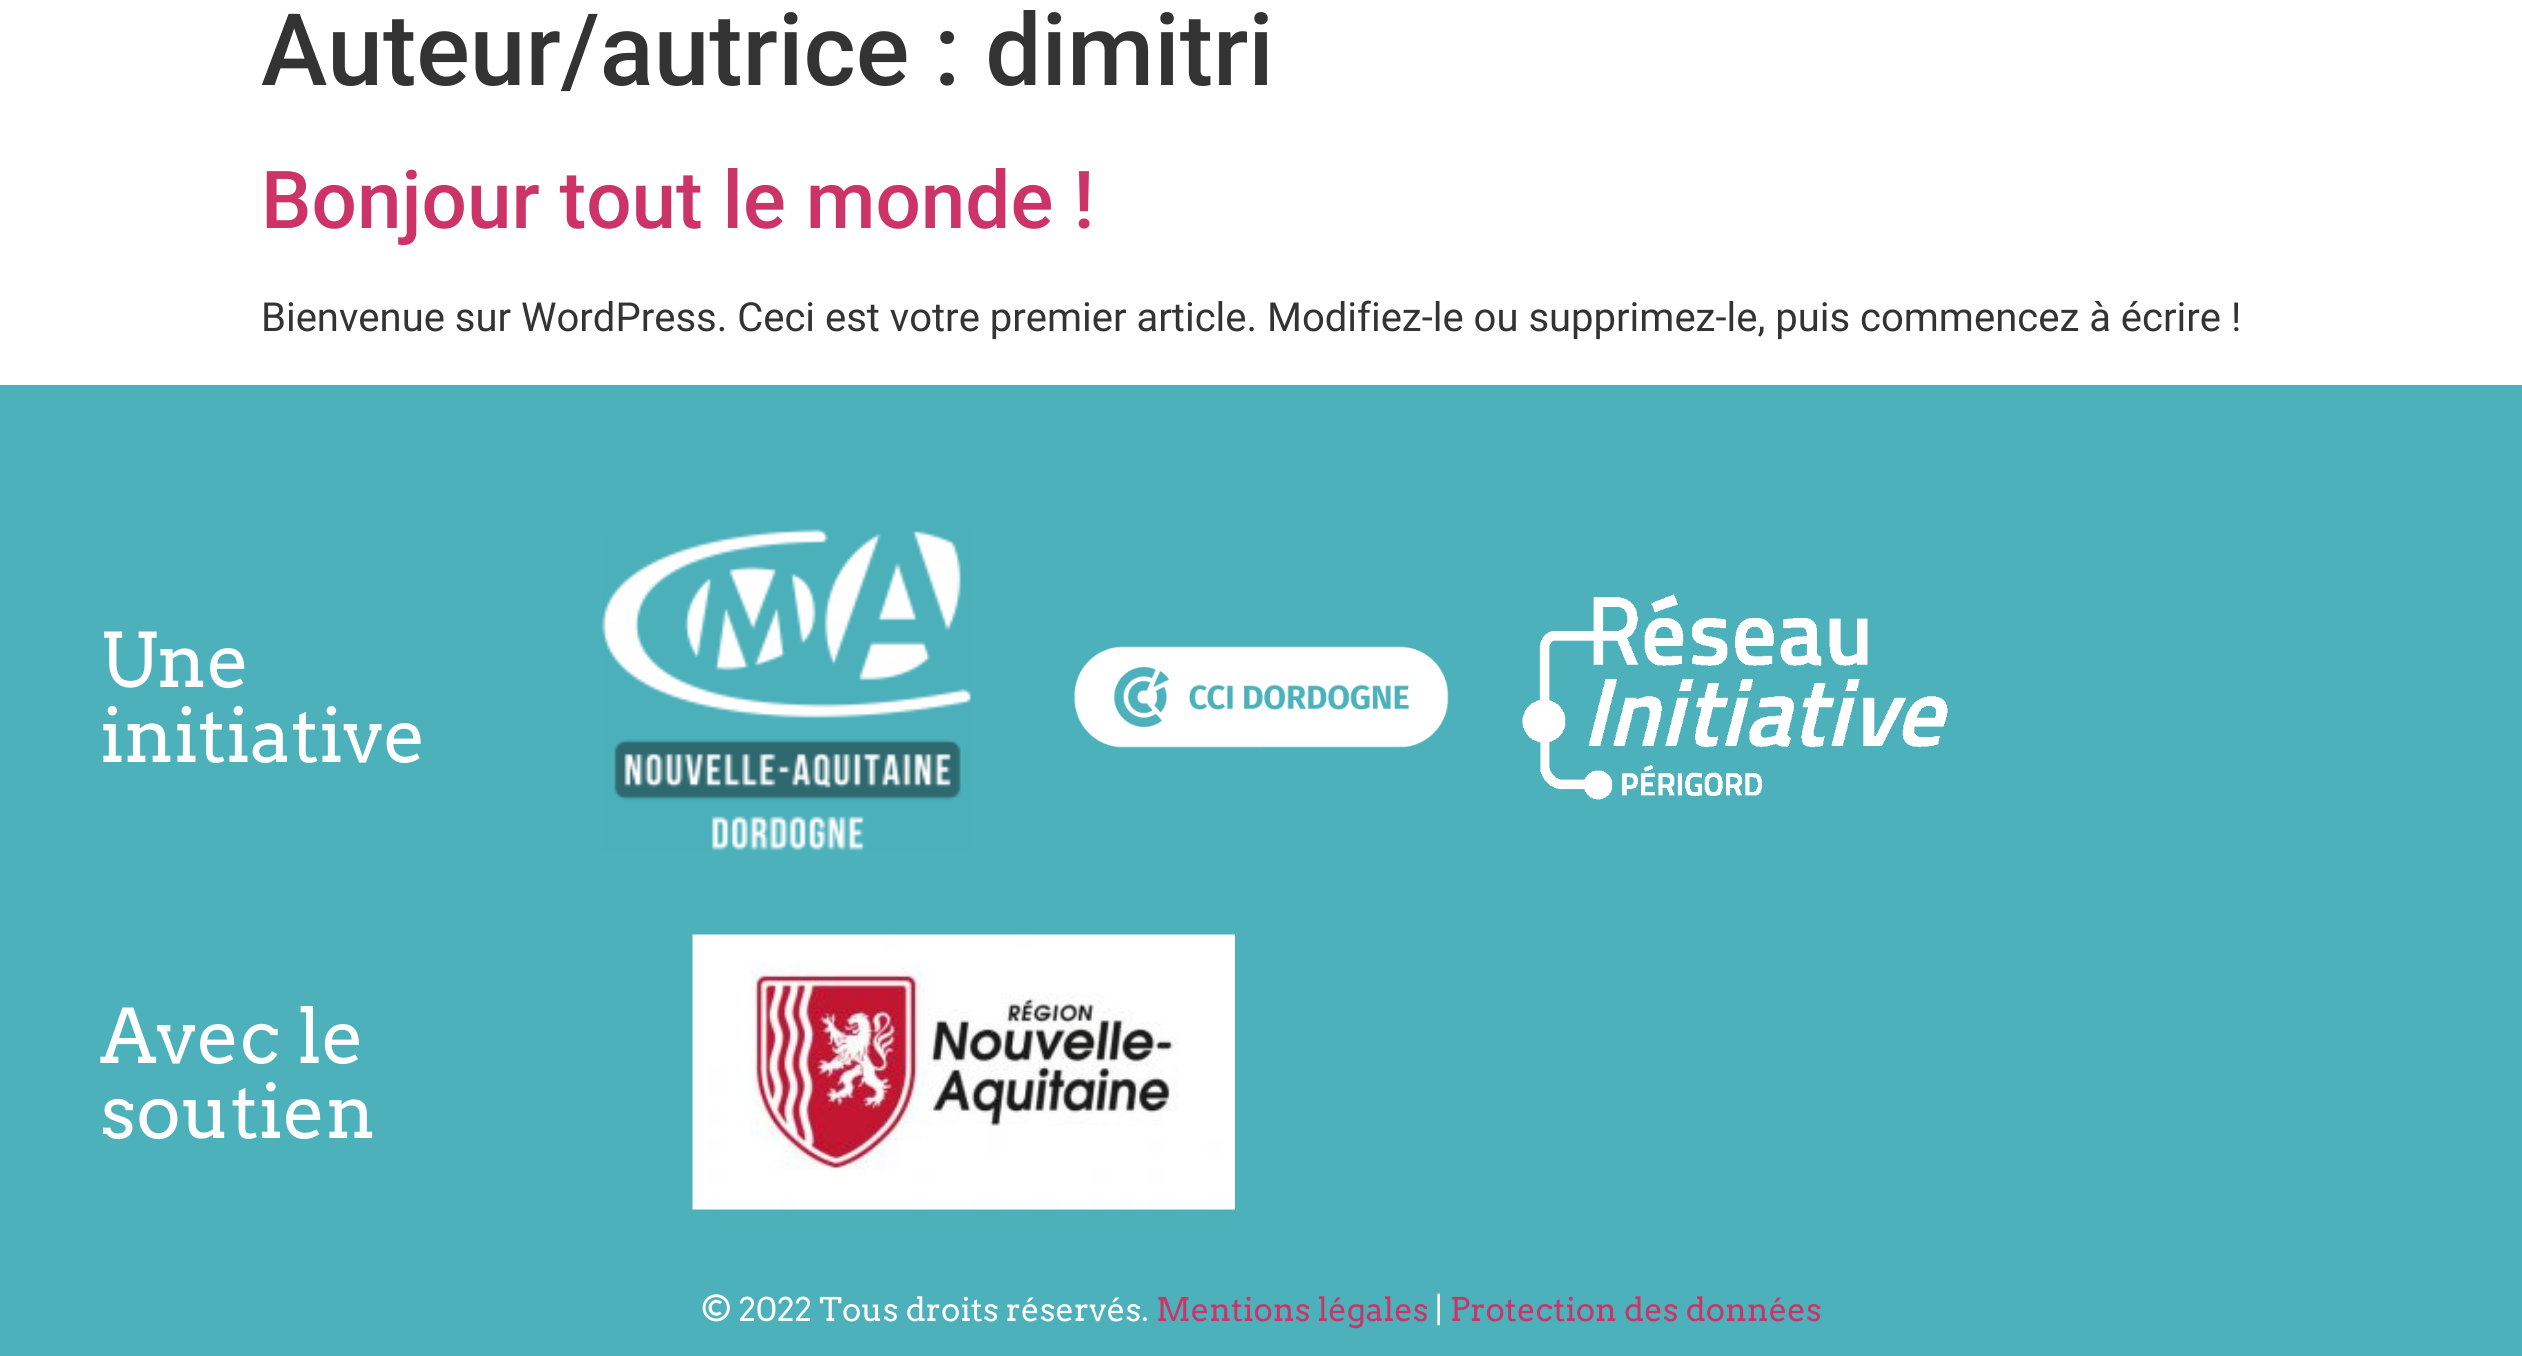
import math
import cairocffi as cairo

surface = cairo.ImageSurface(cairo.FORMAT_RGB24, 2522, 1356)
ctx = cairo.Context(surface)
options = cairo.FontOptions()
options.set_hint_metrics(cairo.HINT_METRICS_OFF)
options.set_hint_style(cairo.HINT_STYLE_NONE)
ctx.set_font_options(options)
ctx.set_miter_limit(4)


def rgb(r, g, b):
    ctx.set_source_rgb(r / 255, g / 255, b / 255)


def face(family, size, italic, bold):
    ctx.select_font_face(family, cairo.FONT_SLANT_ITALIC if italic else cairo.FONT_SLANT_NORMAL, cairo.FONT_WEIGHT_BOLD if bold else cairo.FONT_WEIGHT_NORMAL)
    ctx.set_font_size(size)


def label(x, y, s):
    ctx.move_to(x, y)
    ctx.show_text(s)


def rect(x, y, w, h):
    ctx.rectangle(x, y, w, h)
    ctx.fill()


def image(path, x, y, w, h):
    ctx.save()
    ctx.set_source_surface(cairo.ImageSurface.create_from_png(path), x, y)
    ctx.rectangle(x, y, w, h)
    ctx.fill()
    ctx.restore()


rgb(255, 255, 255)
ctx.paint()
face('Roboto Medium', 100, 0, 0)
rgb(51, 51, 51)
label(261, 85, 'Auteur/autrice : dimitri')
face('Roboto Medium', 80, 0, 0)
rgb(204, 51, 102)
label(261, 228, 'Bonjour tout le monde !')
face('Roboto', 40, 0, 0)
rgb(51, 51, 51)
label(261, 331, 'Bienvenue sur WordPress. Ceci est votre premier article. Modifiez-le ou supprimez-le, puis commencez à écrire !')
rgb(77, 177, 187)
rect(0, 385, 2522, 971)
face('Arvo', 75, 0, 0)
rgb(255, 255, 255)
label(100, 687, 'Une')
label(100, 762, 'initiative')
image('image0.png', 601, 529, 370, 322)
image('image1.png', 1074, 646, 375, 102)
image('image2.png', 1522, 594, 426, 206)
label(100, 1063, 'Avec le')
label(100, 1138, 'soutien')
image('image3.png', 692, 934, 543, 276)
face('Arvo', 32.5, 0, 0)
label(701, 1321, '© 2022 Tous droits réservés.')
rgb(204, 51, 102)
label(1156, 1321, 'Mentions légales')
rgb(255, 255, 255)
label(1435, 1321, '|')
rgb(204, 51, 102)
label(1450, 1321, 'Protection des données')
surface.write_to_png('render.png')
